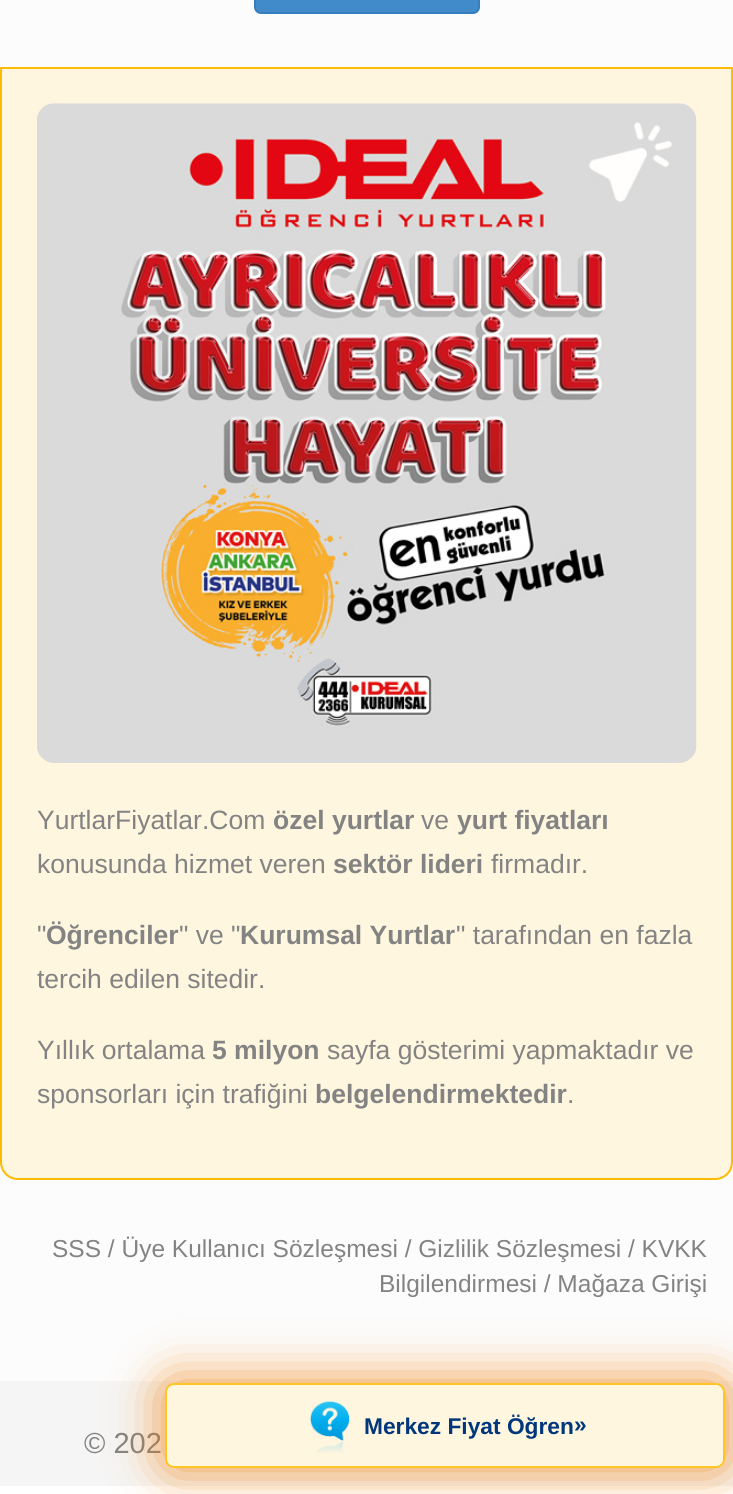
import math
import cairocffi as cairo

surface = cairo.ImageSurface(cairo.FORMAT_RGB24, 733, 1494)
ctx = cairo.Context(surface)
options = cairo.FontOptions()
options.set_hint_metrics(cairo.HINT_METRICS_OFF)
options.set_hint_style(cairo.HINT_STYLE_NONE)
ctx.set_font_options(options)
ctx.set_miter_limit(4)


def rgb(r, g, b):
    ctx.set_source_rgb(r / 255, g / 255, b / 255)


def face(family, size, italic, bold):
    ctx.select_font_face(family, cairo.FONT_SLANT_ITALIC if italic else cairo.FONT_SLANT_NORMAL, cairo.FONT_WEIGHT_BOLD if bold else cairo.FONT_WEIGHT_NORMAL)
    ctx.set_font_size(size)


def label(x, y, s):
    ctx.move_to(x, y)
    ctx.show_text(s)


def rect(x, y, w, h):
    ctx.rectangle(x, y, w, h)
    ctx.fill()


def rrect(x, y, w, h, r):
    ctx.new_sub_path()
    for i, (u, v) in enumerate([(x + w - r, y + h - r), (x + r, y + h - r), (x + r, y + r), (x + w - r, y + r)]):
        ctx.arc(u, v, r, i * math.pi / 2, (i + 1) * math.pi / 2)
    ctx.close_path()


def soft_shadow(x, y, w, h, r, blur, alpha):
    ctx.push_group_with_content(cairo.CONTENT_ALPHA)
    ctx.set_operator(cairo.OPERATOR_SOURCE)
    for i in range(15, -16, -2):
        e = blur * i / 6
        if min(w, h) + 2 * e > 0:
            ctx.set_source_rgba(0, 0, 0, alpha * math.erfc((i - 1) / 8.5) / 2)
            rrect(x - e, y - e, w + 2 * e, h + 2 * e, max(0, min(r + e + blur * .6, min(w, h) / 2 + e)))
            ctx.fill()
    ctx.mask(ctx.pop_group())


def image(path, x, y, w, h):
    ctx.save()
    ctx.set_source_surface(cairo.ImageSurface.create_from_png(path), x, y)
    ctx.rectangle(x, y, w, h)
    ctx.fill()
    ctx.restore()


rgb(255, 255, 255)
ctx.paint()
rgb(252, 252, 252)
rect(0, 0, 733, 1381)
rgb(66, 139, 202)
rrect(255, -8, 224, 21, 6)
ctx.fill_preserve()
rgb(53, 126, 189)
ctx.stroke()
rgb(255, 246, 223)
ctx.new_path()
ctx.move_to(1, 68)
ctx.line_to(732, 68)
ctx.line_to(732, 1162)
ctx.curve_to(732, 1171.5, 724.5, 1179, 715, 1179)
ctx.line_to(18, 1179)
ctx.curve_to(8.5, 1179, 1, 1171.5, 1, 1162)
ctx.close_path()
ctx.fill_preserve()
rgb(254, 187, 2)
ctx.stroke()
image('image0.png', 37, 103, 660, 660)
face('Liberation Sans', 26.5, 0, 0)
rgb(131, 131, 131)
label(37, 829, 'YurtlarFiyatlar.Com')
face('Liberation Sans', 26.5, 0, 1)
label(273, 829, 'özel yurtlar')
face('Liberation Sans', 26.5, 0, 0)
label(421, 829, 've')
face('Liberation Sans', 26.5, 0, 1)
label(457, 829, 'yurt fiyatları')
face('Liberation Sans', 26.5, 0, 0)
label(37, 873, 'konusunda hizmet veren')
face('Liberation Sans', 26.5, 0, 1)
label(333, 873, 'sektör lideri')
face('Liberation Sans', 26.5, 0, 0)
label(491, 873, 'firmadır.')
label(37, 944, '"')
face('Liberation Sans', 26.5, 0, 1)
label(46, 944, 'Öğrenciler')
face('Liberation Sans', 26.5, 0, 0)
label(179, 944, '" ve "')
face('Liberation Sans', 26.5, 0, 1)
label(240, 944, 'Kurumsal Yurtlar')
face('Liberation Sans', 26.5, 0, 0)
label(456, 944, '" tarafından en fazla')
label(37, 988, 'tercih edilen sitedir.')
label(37, 1059, 'Yıllık ortalama')
face('Liberation Sans', 26.5, 0, 1)
label(212, 1059, '5 milyon')
face('Liberation Sans', 26.5, 0, 0)
label(327, 1059, 'sayfa gösterimi yapmaktadır ve')
label(37, 1103, 'sponsorları için trafiğini')
face('Liberation Sans', 26.5, 0, 1)
label(315, 1103, 'belgelendirmektedir')
face('Liberation Sans', 26.5, 0, 0)
label(567, 1103, '.')
face('Liberation Sans', 24.5, 0, 0)
label(52, 1257, 'SSS / Üye Kullanıcı Sözleşmesi / Gizlilik Sözleşmesi / KVKK')
label(379, 1292, 'Bilgilendirmesi / Mağaza Girişi')
rgb(245, 245, 245)
rect(0, 1381, 733, 105)
face('Liberation Sans', 29, 0, 0)
rgb(131, 131, 131)
label(84, 1453, '© 202')
rgb(240, 124, 0)
soft_shadow(165, 1383, 560, 85, 9, 26, 0.82)
rgb(255, 246, 223)
rrect(166, 1384, 558, 83, 8)
ctx.fill_preserve()
rgb(254, 197, 37)
ctx.stroke()
image('image1.png', 309, 1401, 41, 52)
face('Liberation Sans', 22.75, 0, 1)
rgb(0, 54, 123)
label(364, 1434, 'Merkez Fiyat Öğren')
label(574, 1432, '»')
surface.write_to_png('render.png')
